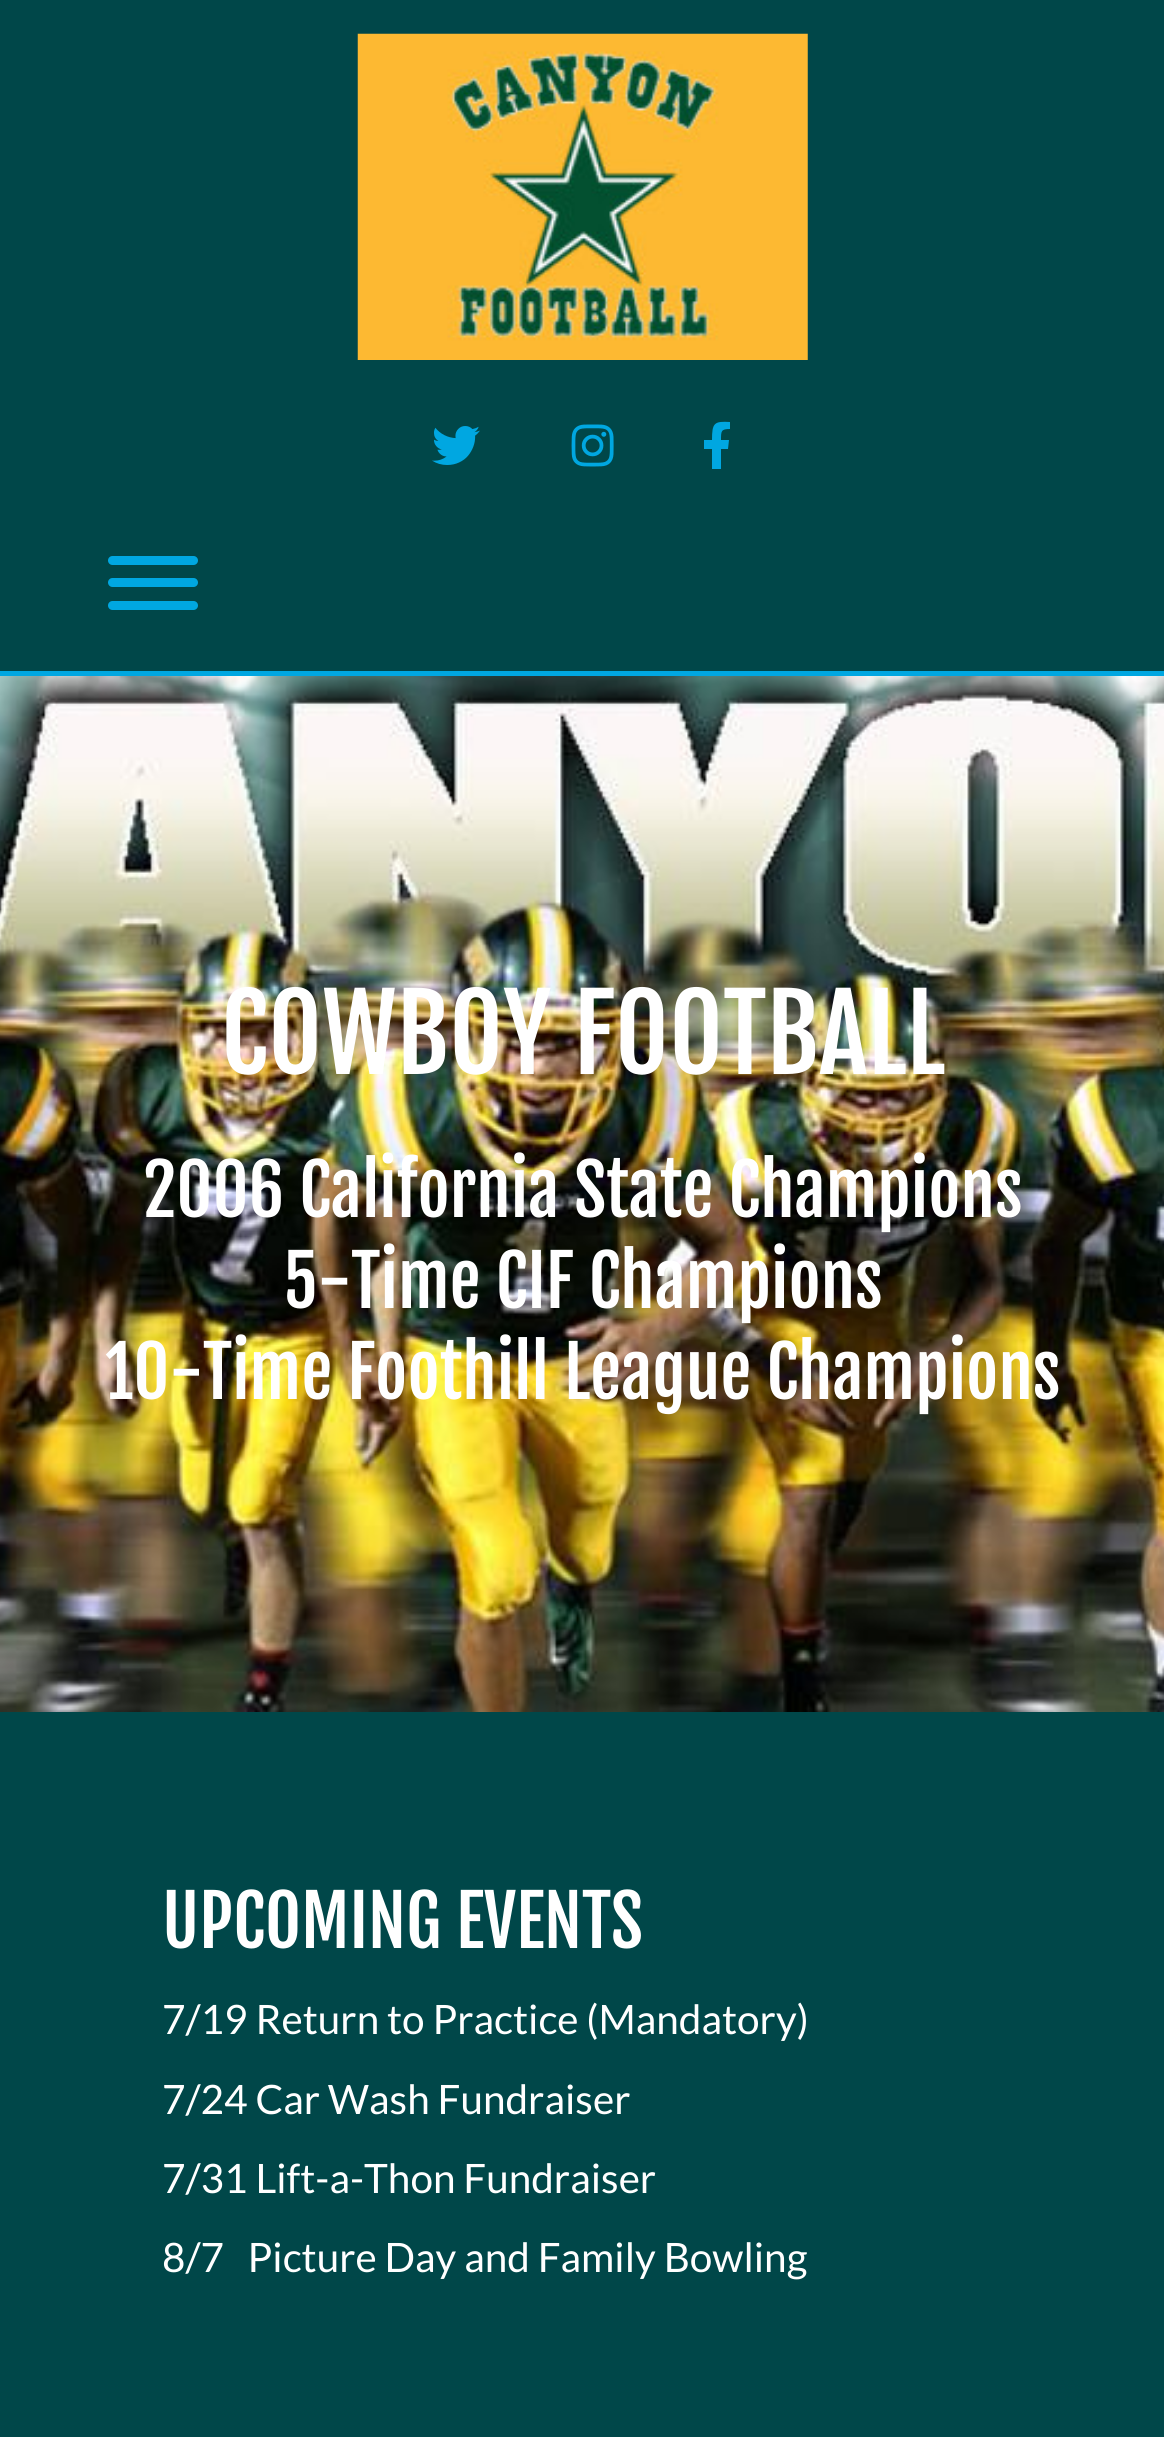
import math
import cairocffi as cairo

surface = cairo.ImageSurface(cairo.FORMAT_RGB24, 1164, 2437)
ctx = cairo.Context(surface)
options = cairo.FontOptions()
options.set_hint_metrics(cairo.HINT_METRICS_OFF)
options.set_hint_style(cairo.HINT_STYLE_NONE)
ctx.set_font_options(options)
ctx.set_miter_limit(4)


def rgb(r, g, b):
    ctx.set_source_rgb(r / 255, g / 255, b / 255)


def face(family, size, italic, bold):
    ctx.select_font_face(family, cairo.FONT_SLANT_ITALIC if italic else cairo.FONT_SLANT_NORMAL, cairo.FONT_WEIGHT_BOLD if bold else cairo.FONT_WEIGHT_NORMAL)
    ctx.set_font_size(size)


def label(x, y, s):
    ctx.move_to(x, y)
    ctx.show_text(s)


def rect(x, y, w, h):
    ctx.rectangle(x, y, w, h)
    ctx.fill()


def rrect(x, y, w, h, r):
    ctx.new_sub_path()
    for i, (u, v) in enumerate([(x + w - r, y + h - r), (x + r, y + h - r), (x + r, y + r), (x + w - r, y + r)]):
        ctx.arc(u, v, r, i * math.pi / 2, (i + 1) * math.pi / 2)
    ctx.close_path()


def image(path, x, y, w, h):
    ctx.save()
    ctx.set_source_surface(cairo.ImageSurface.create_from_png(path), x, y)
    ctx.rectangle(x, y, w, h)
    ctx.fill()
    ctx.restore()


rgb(255, 255, 255)
ctx.paint()
rgb(0, 71, 73)
rect(0, 0, 1164, 671)
rgb(0, 167, 225)
rect(0, 671, 1164, 5)
image('image0.png', 357, 33, 451, 327)
image('image1.png', 432, 426, 48, 39)
image('image2.png', 571, 424, 43, 43)
ctx.new_path()
ctx.move_to(728, 449)
ctx.line_to(721, 449)
ctx.line_to(721, 469)
ctx.line_to(712, 469)
ctx.line_to(712, 449)
ctx.line_to(704, 449)
ctx.line_to(704, 440)
ctx.line_to(712, 440)
ctx.curve_to(712, 423, 714, 421, 730, 422)
ctx.line_to(730, 429)
ctx.curve_to(721, 429, 721, 431, 721, 440)
ctx.line_to(729, 440)
ctx.close_path()
ctx.fill()
rrect(108, 601, 90, 9, 4.5)
ctx.fill()
rrect(108, 556, 90, 9, 4.5)
ctx.fill()
rrect(108, 578, 90, 9, 4.5)
ctx.fill()
image('image3.png', 0, 676, 1164, 1036)
face('Fjalla One', 103.5, 0, 0)
rgb(255, 255, 255)
label(221, 1074, 'COWBOY FOOTBALL')
face('Fjalla One', 69.75, 0, 0)
label(143, 1217, '2006 California State Champions')
label(283, 1308, '5-Time CIF Champions')
label(105, 1399, '10-Time Foothill League Champions')
rgb(0, 71, 73)
rect(0, 1712, 1164, 725)
rgb(255, 255, 255)
label(162, 1948, 'UPCOMING EVENTS')
face('Lato', 40.5, 0, 0)
label(162, 2034, '7/19 Return to Practice (Mandatory)')
label(162, 2114, '7/24 Car Wash Fundraiser')
label(162, 2193, '7/31 Lift-a-Thon Fundraiser')
label(162, 2272, '8/7   Picture Day and Family Bowling')
surface.write_to_png('render.png')
